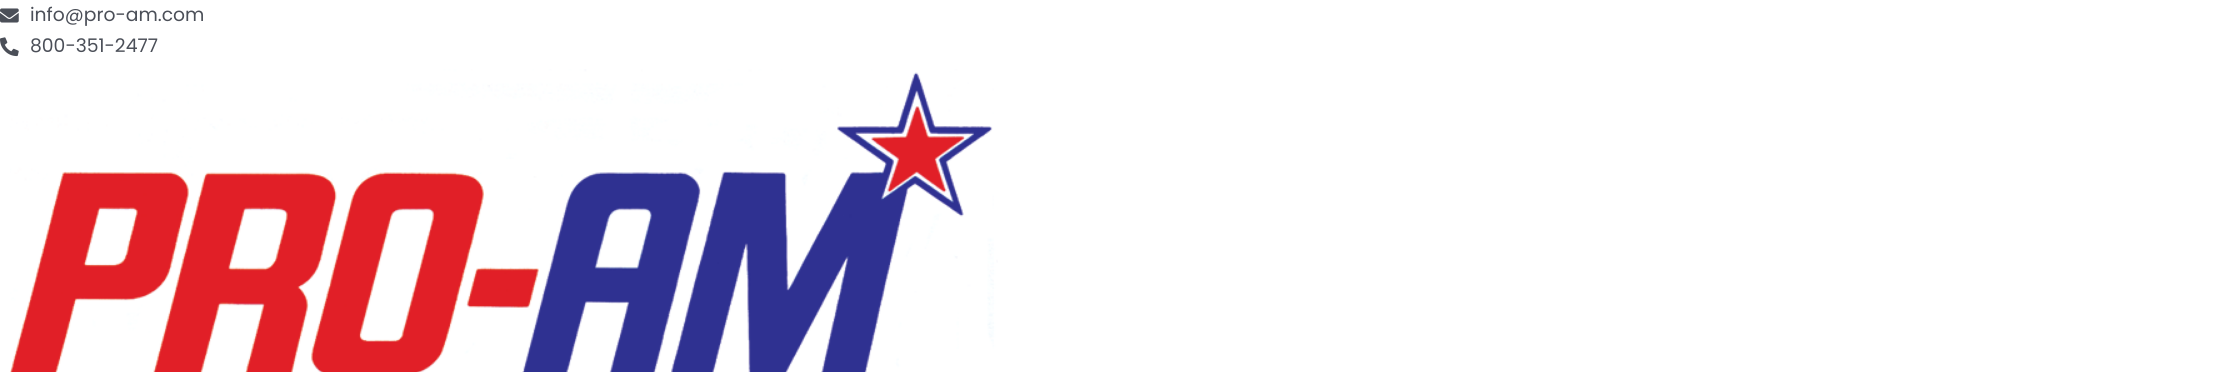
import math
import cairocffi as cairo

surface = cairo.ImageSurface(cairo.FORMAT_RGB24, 2218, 372)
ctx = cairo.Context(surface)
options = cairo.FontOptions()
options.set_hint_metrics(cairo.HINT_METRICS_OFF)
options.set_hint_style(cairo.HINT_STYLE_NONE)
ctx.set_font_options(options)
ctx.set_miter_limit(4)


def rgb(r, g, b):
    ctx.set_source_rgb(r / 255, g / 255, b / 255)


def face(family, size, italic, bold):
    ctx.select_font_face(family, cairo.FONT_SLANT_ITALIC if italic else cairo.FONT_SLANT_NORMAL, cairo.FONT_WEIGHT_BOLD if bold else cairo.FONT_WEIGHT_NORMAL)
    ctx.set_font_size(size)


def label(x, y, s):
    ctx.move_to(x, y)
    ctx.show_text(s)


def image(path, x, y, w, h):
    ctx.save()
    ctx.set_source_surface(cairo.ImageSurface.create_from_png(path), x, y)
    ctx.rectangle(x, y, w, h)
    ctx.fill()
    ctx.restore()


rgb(255, 255, 255)
ctx.paint()
image('image0.png', 0, 8, 19, 15)
face('Poppins', 18.75, 0, 0)
rgb(75, 79, 88)
label(30, 21, 'info@pro-am.com')
image('image1.png', 0, 37, 19, 20)
label(30, 52, '800-351-2477')
image('image2.png', 10, 69, 988, 303)
surface.write_to_png('render.png')
